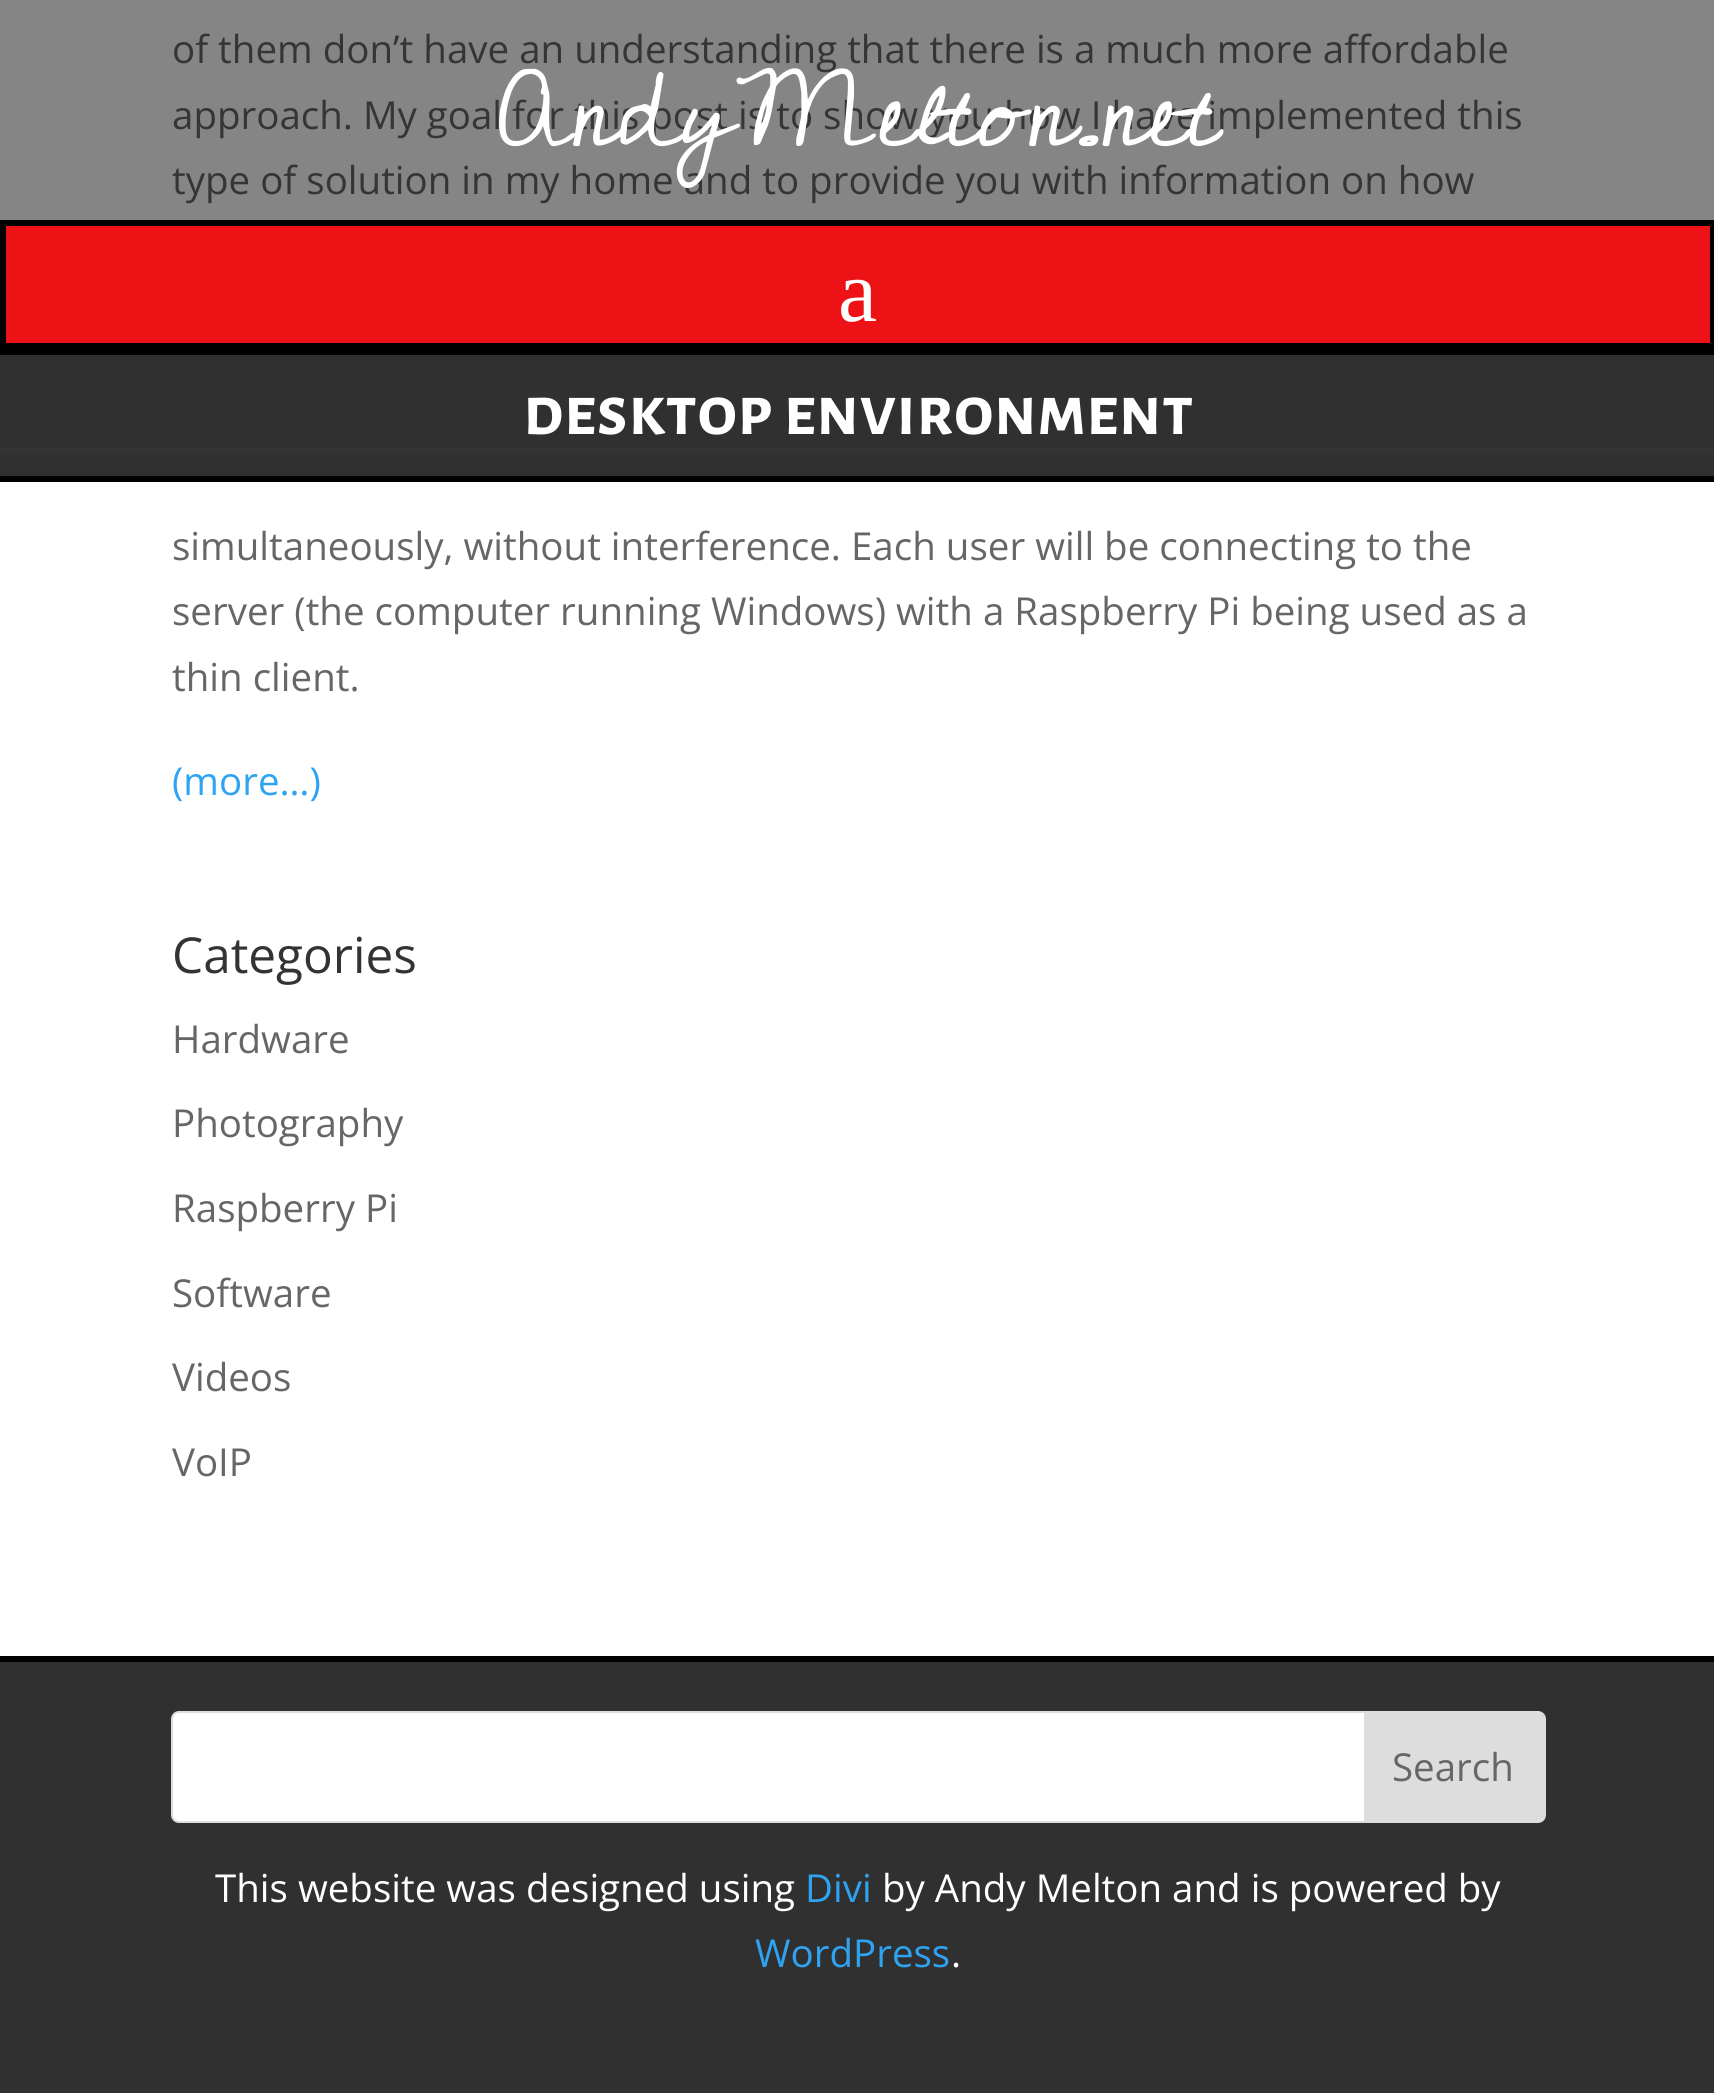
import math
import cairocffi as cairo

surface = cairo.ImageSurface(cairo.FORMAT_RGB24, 1714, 2093)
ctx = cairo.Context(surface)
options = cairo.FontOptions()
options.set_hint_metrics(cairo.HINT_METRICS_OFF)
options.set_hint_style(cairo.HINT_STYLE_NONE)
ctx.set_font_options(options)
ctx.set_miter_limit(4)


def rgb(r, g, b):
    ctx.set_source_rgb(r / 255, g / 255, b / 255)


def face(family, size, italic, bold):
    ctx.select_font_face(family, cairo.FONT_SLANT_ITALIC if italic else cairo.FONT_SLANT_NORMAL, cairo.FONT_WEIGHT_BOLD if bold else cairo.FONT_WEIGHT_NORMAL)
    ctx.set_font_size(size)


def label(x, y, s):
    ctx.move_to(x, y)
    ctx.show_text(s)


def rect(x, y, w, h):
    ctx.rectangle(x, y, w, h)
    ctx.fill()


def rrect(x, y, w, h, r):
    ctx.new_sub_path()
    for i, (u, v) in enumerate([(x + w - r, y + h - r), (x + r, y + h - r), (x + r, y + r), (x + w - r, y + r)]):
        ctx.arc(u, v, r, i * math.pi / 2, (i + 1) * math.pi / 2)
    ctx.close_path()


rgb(255, 255, 255)
ctx.paint()
face('Open Sans', 38.5, 0, 0)
rgb(102, 102, 102)
label(172, 63, 'of them don’t have an understanding that there is a much more affordable')
label(172, 129, 'approach. My goal for this post is to show you how I have implemented this')
label(172, 194, 'type of solution in my home and to provide you with information on how')
label(172, 560, 'simultaneously, without interference. Each user will be connecting to the')
label(172, 625, 'server (the computer running Windows) with a Raspberry Pi being used as a')
label(172, 691, 'thin client.')
rgb(46, 163, 242)
label(172, 795, '(more…)')
face('Open Sans', 49.5, 0, 0)
rgb(51, 51, 51)
label(172, 973, 'Categories')
face('Open Sans', 38.5, 0, 0)
rgb(102, 102, 102)
label(172, 1053, 'Hardware')
label(172, 1137, 'Photography')
label(172, 1222, 'Raspberry Pi')
label(172, 1307, 'Software')
label(172, 1391, 'Videos')
label(172, 1476, 'VoIP')
rgb(48, 48, 48)
rect(0, 1662, 1714, 431)
rgb(0, 0, 0)
rect(0, 1656, 1714, 6)
rrect(172.5, 1712.5, 1372, 109, 6.5)
rgb(221, 221, 221)
ctx.set_line_width(3)
ctx.stroke()
rgb(255, 255, 255)
rrect(173, 1713, 1370, 108, 6)
ctx.fill()
rgb(221, 221, 221)
ctx.new_path()
ctx.move_to(1364, 1713)
ctx.line_to(1537, 1713)
ctx.curve_to(1540.5, 1713, 1543, 1715.5, 1543, 1719)
ctx.line_to(1543, 1815)
ctx.curve_to(1543, 1818.5, 1540.5, 1821, 1537, 1821)
ctx.line_to(1364, 1821)
ctx.close_path()
ctx.fill()
rgb(102, 102, 102)
label(1392, 1781, 'Search')
rgb(255, 255, 255)
label(215, 1902, 'This website was designed using')
rgb(46, 163, 242)
label(805, 1902, 'Divi')
rgb(255, 255, 255)
label(882, 1902, 'by Andy Melton and is powered by')
rgb(46, 163, 242)
label(755, 1967, 'WordPress')
rgb(255, 255, 255)
label(951, 1967, '.')
ctx.set_source_rgba(0, 0, 0, 0.48)
rect(0, 0, 1714, 220)
face('Cedarville Cursive', 107.25, 0, 0)
rgb(255, 255, 255)
label(497, 146, 'AndyMelton.net')
rgb(236, 18, 21)
ctx.rectangle(3, 223, 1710, 123)
ctx.fill_preserve()
rgb(0, 0, 0)
ctx.set_line_width(6)
ctx.stroke()
face('Liberation Serif', 88, 0, 0)
rgb(255, 255, 255)
label(838, 321, 'a')
rgb(48, 48, 48)
rect(0, 355, 1714, 121)
rgb(0, 0, 0)
rect(0, 349, 1714, 6)
rect(0, 476, 1714, 6)
rgb(51, 51, 51)
rect(0, 448, 1714, 6)
face('Alegreya Sans SC', 71.5, 0, 1)
rgb(255, 255, 255)
label(523, 434, 'desktop environment')
surface.write_to_png('render.png')
